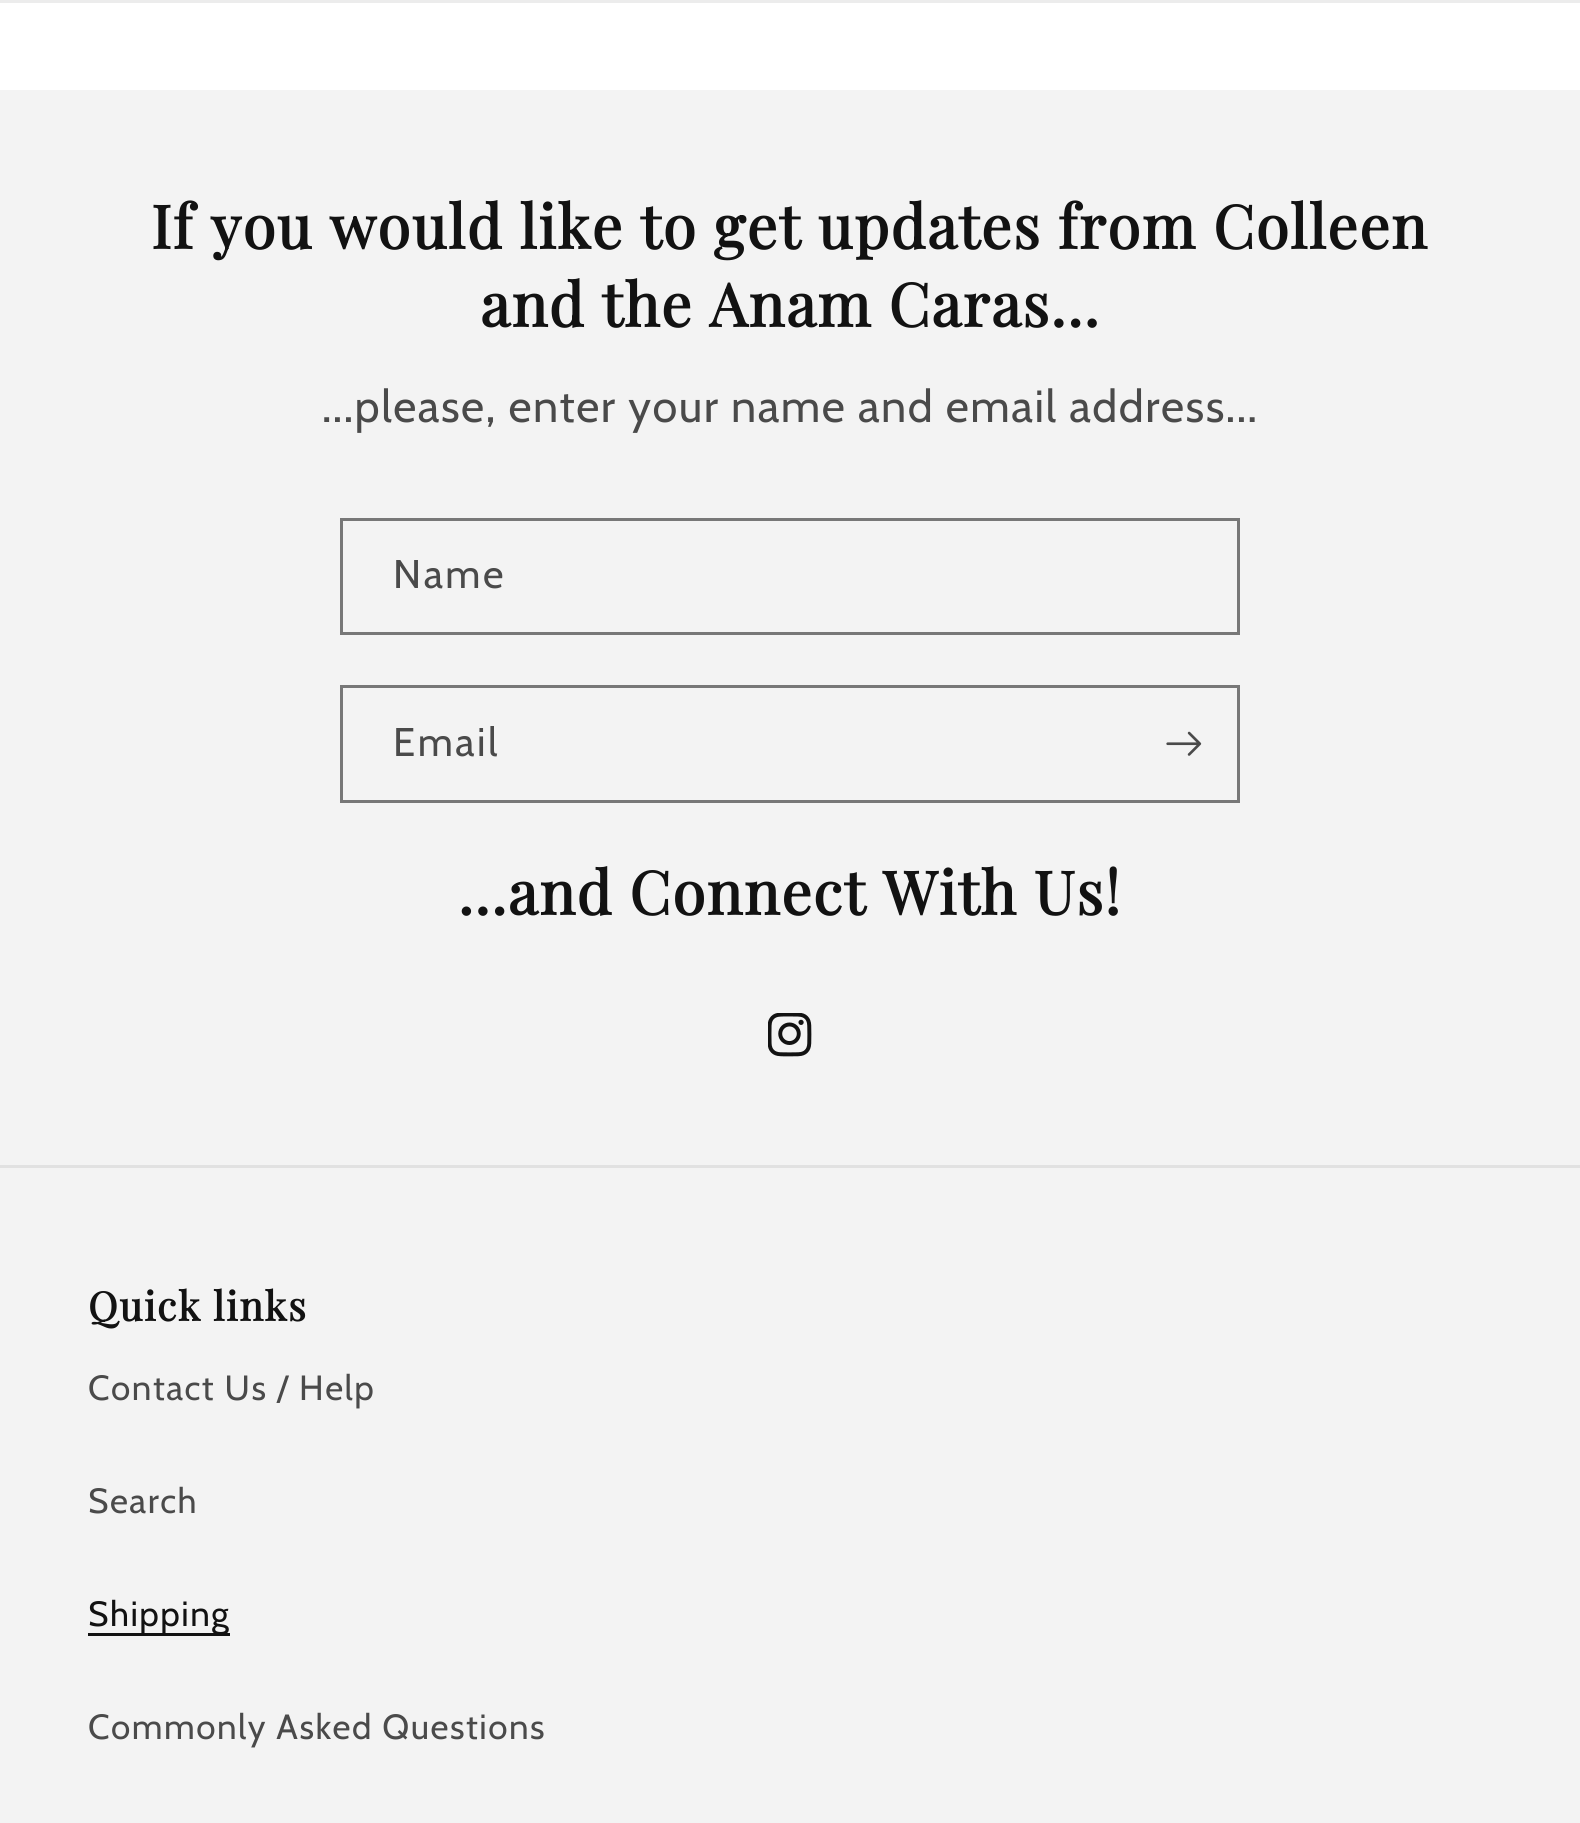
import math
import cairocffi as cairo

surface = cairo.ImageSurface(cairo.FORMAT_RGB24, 1580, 1823)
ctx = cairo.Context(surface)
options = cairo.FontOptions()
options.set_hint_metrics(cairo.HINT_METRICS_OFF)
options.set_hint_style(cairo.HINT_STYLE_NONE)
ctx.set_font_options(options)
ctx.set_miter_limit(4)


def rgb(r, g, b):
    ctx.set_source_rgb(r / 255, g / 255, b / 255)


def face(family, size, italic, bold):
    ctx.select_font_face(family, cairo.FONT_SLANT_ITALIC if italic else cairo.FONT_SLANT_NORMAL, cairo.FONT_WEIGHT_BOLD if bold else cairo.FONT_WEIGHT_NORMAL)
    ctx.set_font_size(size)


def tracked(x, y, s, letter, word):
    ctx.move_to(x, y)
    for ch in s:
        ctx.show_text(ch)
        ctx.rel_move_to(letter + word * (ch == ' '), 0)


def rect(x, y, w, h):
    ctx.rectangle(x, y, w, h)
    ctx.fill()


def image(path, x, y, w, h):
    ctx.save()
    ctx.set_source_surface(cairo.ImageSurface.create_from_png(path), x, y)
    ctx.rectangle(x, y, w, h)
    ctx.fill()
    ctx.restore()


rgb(255, 255, 255)
ctx.paint()
rgb(236, 236, 236)
rect(0, 0, 1580, 3)
rgb(243, 243, 243)
rect(0, 90, 1580, 1733)
face('Playfair Display', 60, 0, 1)
rgb(18, 18, 18)
tracked(151, 249, 'If you would like to get updates from Colleen', 1.5, 0)
tracked(480, 327, 'and the Anam Caras...', 1.5, 0)
face('Cabin', 45, 0, 0)
rgb(74, 74, 74)
tracked(322, 422, '...please, enter your name and email address...', 1.5, 0)
ctx.rectangle(341.5, 519.5, 897, 114)
rgb(119, 119, 119)
ctx.set_line_width(3)
ctx.stroke()
face('Cabin', 40, 0, 0)
rgb(74, 74, 74)
tracked(393, 588, 'Name', 2.5, 0)
ctx.rectangle(341.5, 686.5, 897, 115)
rgb(119, 119, 119)
ctx.stroke()
rgb(74, 74, 74)
tracked(393, 756, 'Email', 2.5, 0)
image('image0.png', 1166, 731, 36, 25)
face('Playfair Display', 60, 0, 1)
rgb(18, 18, 18)
tracked(458, 915, '...and Connect With Us!', 1.5, 0)
image('image1.png', 768, 1013, 44, 44)
rgb(225, 225, 225)
rect(0, 1165, 1580, 3)
face('Playfair Display', 40, 0, 1)
rgb(18, 18, 18)
tracked(88, 1321, 'Quick links', 1.5, 0)
face('Cabin', 35, 0, 0)
rgb(74, 74, 74)
tracked(88, 1400, 'Contact Us / Help', 1.5, 0)
tracked(88, 1513, 'Search', 1.5, 0)
rgb(18, 18, 18)
rect(88, 1633, 142, 3)
tracked(88, 1626, 'Shipping', 1.5, 0)
rgb(74, 74, 74)
tracked(88, 1739, 'Commonly Asked Questions', 1.5, 0)
surface.write_to_png('render.png')
